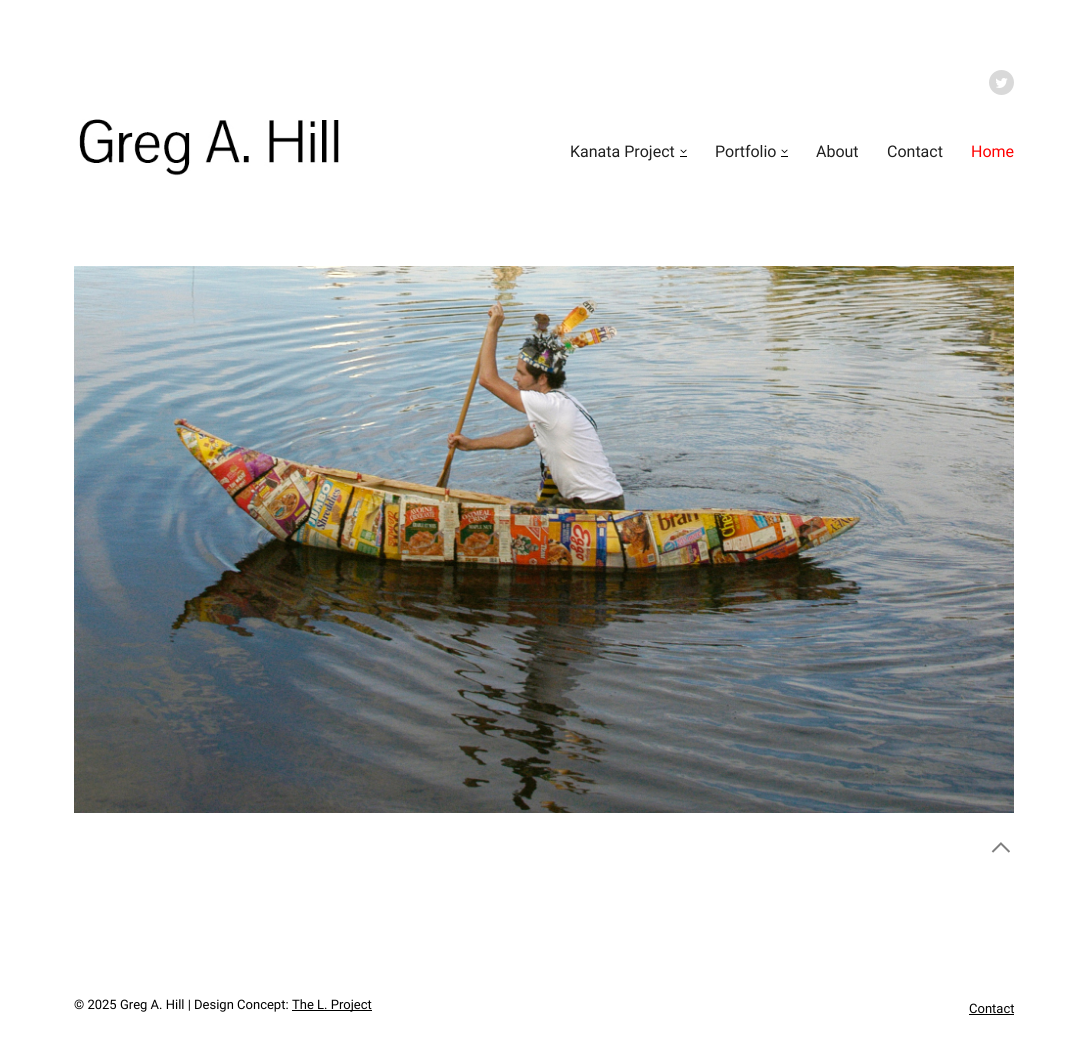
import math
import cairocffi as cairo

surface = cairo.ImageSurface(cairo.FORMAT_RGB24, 1088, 1046)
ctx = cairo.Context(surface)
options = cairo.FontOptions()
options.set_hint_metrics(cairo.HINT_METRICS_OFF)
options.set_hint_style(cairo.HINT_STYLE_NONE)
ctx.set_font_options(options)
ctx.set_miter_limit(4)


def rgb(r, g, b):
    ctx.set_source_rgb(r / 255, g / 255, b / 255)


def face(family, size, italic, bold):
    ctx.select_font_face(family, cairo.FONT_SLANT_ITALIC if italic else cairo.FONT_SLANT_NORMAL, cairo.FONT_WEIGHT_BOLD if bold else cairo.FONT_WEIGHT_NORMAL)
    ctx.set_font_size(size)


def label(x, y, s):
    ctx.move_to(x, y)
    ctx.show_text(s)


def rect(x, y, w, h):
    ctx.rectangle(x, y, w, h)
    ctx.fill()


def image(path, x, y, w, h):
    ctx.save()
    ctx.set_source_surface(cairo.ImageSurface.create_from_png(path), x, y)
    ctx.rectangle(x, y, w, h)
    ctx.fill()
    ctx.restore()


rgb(255, 255, 255)
ctx.paint()
rgb(217, 217, 217)
ctx.arc(1001.5, 82.5, 12.5, 0, 2 * math.pi)
ctx.fill()
image('image0.png', 996, 78, 12, 10)
image('image1.png', 79, 119, 260, 57)
face('Roboto', 16, 0, 0)
rgb(32, 32, 32)
label(570, 157, 'Kanata Project')
image('image2.png', 680, 149, 7, 5)
rgb(0, 0, 0)
rect(680, 156, 7, 1)
rgb(32, 32, 32)
label(715, 157, 'Portfolio')
image('image2.png', 781, 149, 7, 5)
rgb(0, 0, 0)
rect(781, 156, 7, 1)
rgb(32, 32, 32)
label(816, 157, 'About')
label(887, 157, 'Contact')
rgb(255, 0, 0)
label(971, 157, 'Home')
image('image3.png', 74, 266, 940, 547)
image('image4.png', 991, 842, 19, 11)
face('Roboto', 13, 0, 0)
rgb(0, 0, 0)
label(74, 1009, '© 2025 Greg A. Hill | Design Concept:')
rect(292, 1010, 80, 1)
label(292, 1009, 'The L. Project')
label(969, 1013, 'Contact')
rect(969, 1014, 45, 1)
surface.write_to_png('render.png')
